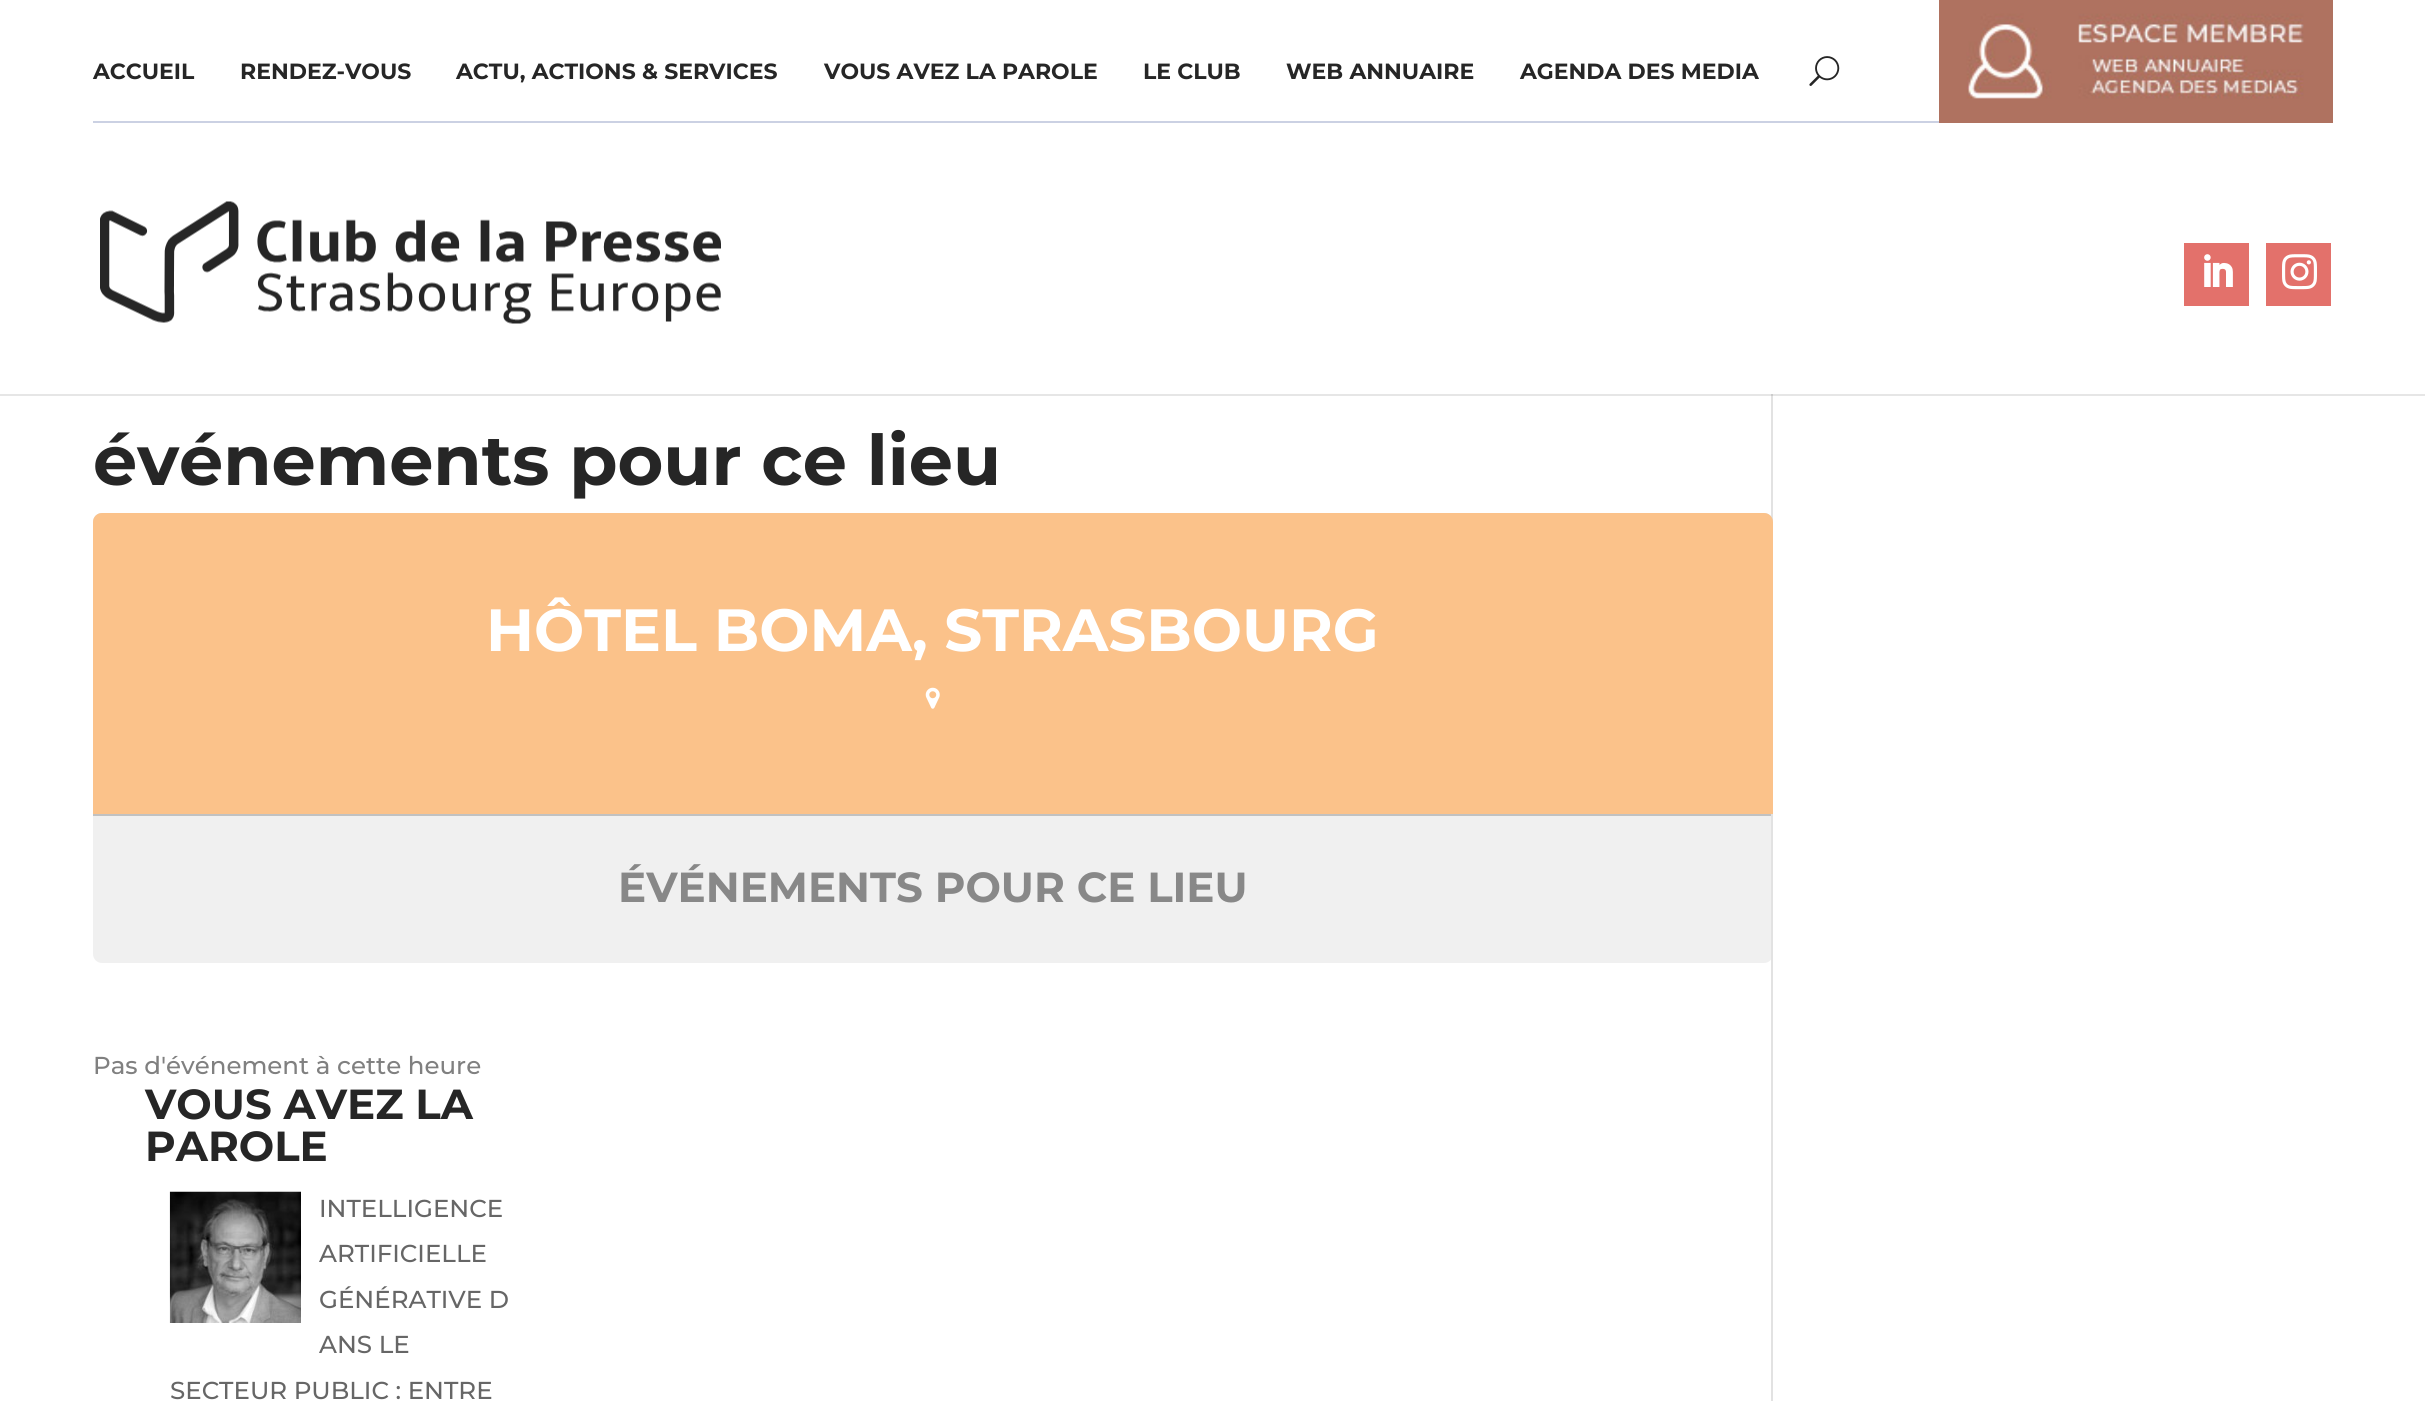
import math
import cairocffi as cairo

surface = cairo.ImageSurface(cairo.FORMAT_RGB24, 2425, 1401)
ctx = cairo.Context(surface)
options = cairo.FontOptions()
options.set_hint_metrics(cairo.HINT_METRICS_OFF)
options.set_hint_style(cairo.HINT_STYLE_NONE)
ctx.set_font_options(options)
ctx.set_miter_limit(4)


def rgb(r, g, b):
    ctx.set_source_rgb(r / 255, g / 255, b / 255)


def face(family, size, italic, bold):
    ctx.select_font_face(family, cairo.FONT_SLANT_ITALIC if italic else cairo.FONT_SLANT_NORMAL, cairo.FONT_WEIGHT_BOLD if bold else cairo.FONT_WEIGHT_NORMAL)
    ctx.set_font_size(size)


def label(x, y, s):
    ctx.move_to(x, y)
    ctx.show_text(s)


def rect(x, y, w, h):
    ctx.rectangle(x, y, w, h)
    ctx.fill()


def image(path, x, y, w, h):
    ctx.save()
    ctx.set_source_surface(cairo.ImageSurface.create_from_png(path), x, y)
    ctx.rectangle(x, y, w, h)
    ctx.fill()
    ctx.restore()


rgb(255, 255, 255)
ctx.paint()
rgb(240, 240, 240)
ctx.new_path()
ctx.move_to(93, 814)
ctx.line_to(1773, 814)
ctx.line_to(1773, 954)
ctx.curve_to(1773, 959, 1769, 963, 1764, 963)
ctx.line_to(102, 963)
ctx.curve_to(97, 963, 93, 959, 93, 954)
ctx.close_path()
ctx.fill()
rgb(193, 193, 193)
rect(93, 814, 1680, 2)
rgb(226, 226, 226)
rect(1771, 394, 2, 1007)
ctx.set_source_rgba(0, 0, 0, 0.1)
ctx.new_path()
ctx.move_to(0, 394)
ctx.line_to(0, 396)
ctx.line_to(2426, 396)
ctx.line_to(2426, 2)
ctx.line_to(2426, 394)
ctx.close_path()
ctx.fill()
rgb(203, 209, 227)
rect(93, 121, 1846, 2)
face('Montserrat Thin', 22, 0, 0)
rgb(38, 38, 38)
label(93, 79, 'ACCUEIL')
label(240, 79, 'RENDEZ-VOUS')
label(456, 79, 'ACTU, ACTIONS & SERVICES')
label(824, 79, 'VOUS AVEZ LA PAROLE')
label(1143, 79, 'LE CLUB')
label(1286, 79, 'WEB ANNUAIRE')
label(1520, 79, 'AGENDA DES MEDIA')
image('image0.png', 1939, 0, 394, 123)
image('image1.png', 1809, 56, 31, 30)
image('image2.png', 100, 201, 621, 123)
rgb(227, 113, 107)
rect(2184, 243, 65, 63)
image('image3.png', 2204, 254, 29, 33)
rect(2266, 243, 65, 63)
image('image4.png', 2282, 254, 35, 36)
face('Montserrat Thin', 70, 0, 0)
rgb(38, 38, 38)
label(93, 485, 'événements pour ce lieu')
rgb(220, 220, 220)
ctx.new_path()
ctx.move_to(102, 513)
ctx.line_to(1764, 513)
ctx.curve_to(1769, 513, 1773, 517, 1773, 522)
ctx.line_to(1773, 814)
ctx.line_to(93, 814)
ctx.line_to(93, 522)
ctx.curve_to(93, 517, 97, 513, 102, 513)
ctx.close_path()
ctx.fill()
ctx.set_source_rgba(1, 0.749, 0.502, 0.89)
ctx.new_path()
ctx.move_to(102, 513)
ctx.line_to(1764, 513)
ctx.curve_to(1769, 513, 1773, 517, 1773, 522)
ctx.line_to(1773, 814)
ctx.line_to(93, 814)
ctx.line_to(93, 522)
ctx.curve_to(93, 517, 97, 513, 102, 513)
ctx.close_path()
ctx.fill()
face('Montserrat Thin', 59.5, 0, 0)
rgb(255, 255, 255)
label(486, 651, 'HÔTEL BOMA, STRASBOURG')
image('image5.png', 925, 687, 15, 22)
face('Montserrat Thin', 42, 0, 0)
rgb(136, 136, 136)
label(618, 902, 'ÉVÉNEMENTS POUR CE LIEU')
face('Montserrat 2 Thin', 24.5, 0, 0)
rgb(128, 128, 128)
label(93, 1074, 'Pas d\'événement à cette heure')
face('Montserrat Thin', 42, 0, 0)
rgb(38, 38, 38)
label(145, 1119, 'VOUS AVEZ LA')
label(145, 1161, 'PAROLE')
image('image6.png', 169, 1191, 132, 132)
face('Montserrat 2 Thin', 24.5, 0, 0)
rgb(102, 102, 102)
label(319, 1217, 'INTELLIGENCE')
label(319, 1262, 'ARTIFICIELLE')
label(319, 1308, 'GÉNÉRATIVE D')
label(319, 1353, 'ANS LE')
label(170, 1399, 'SECTEUR PUBLIC : ENTRE')
surface.write_to_png('render.png')
